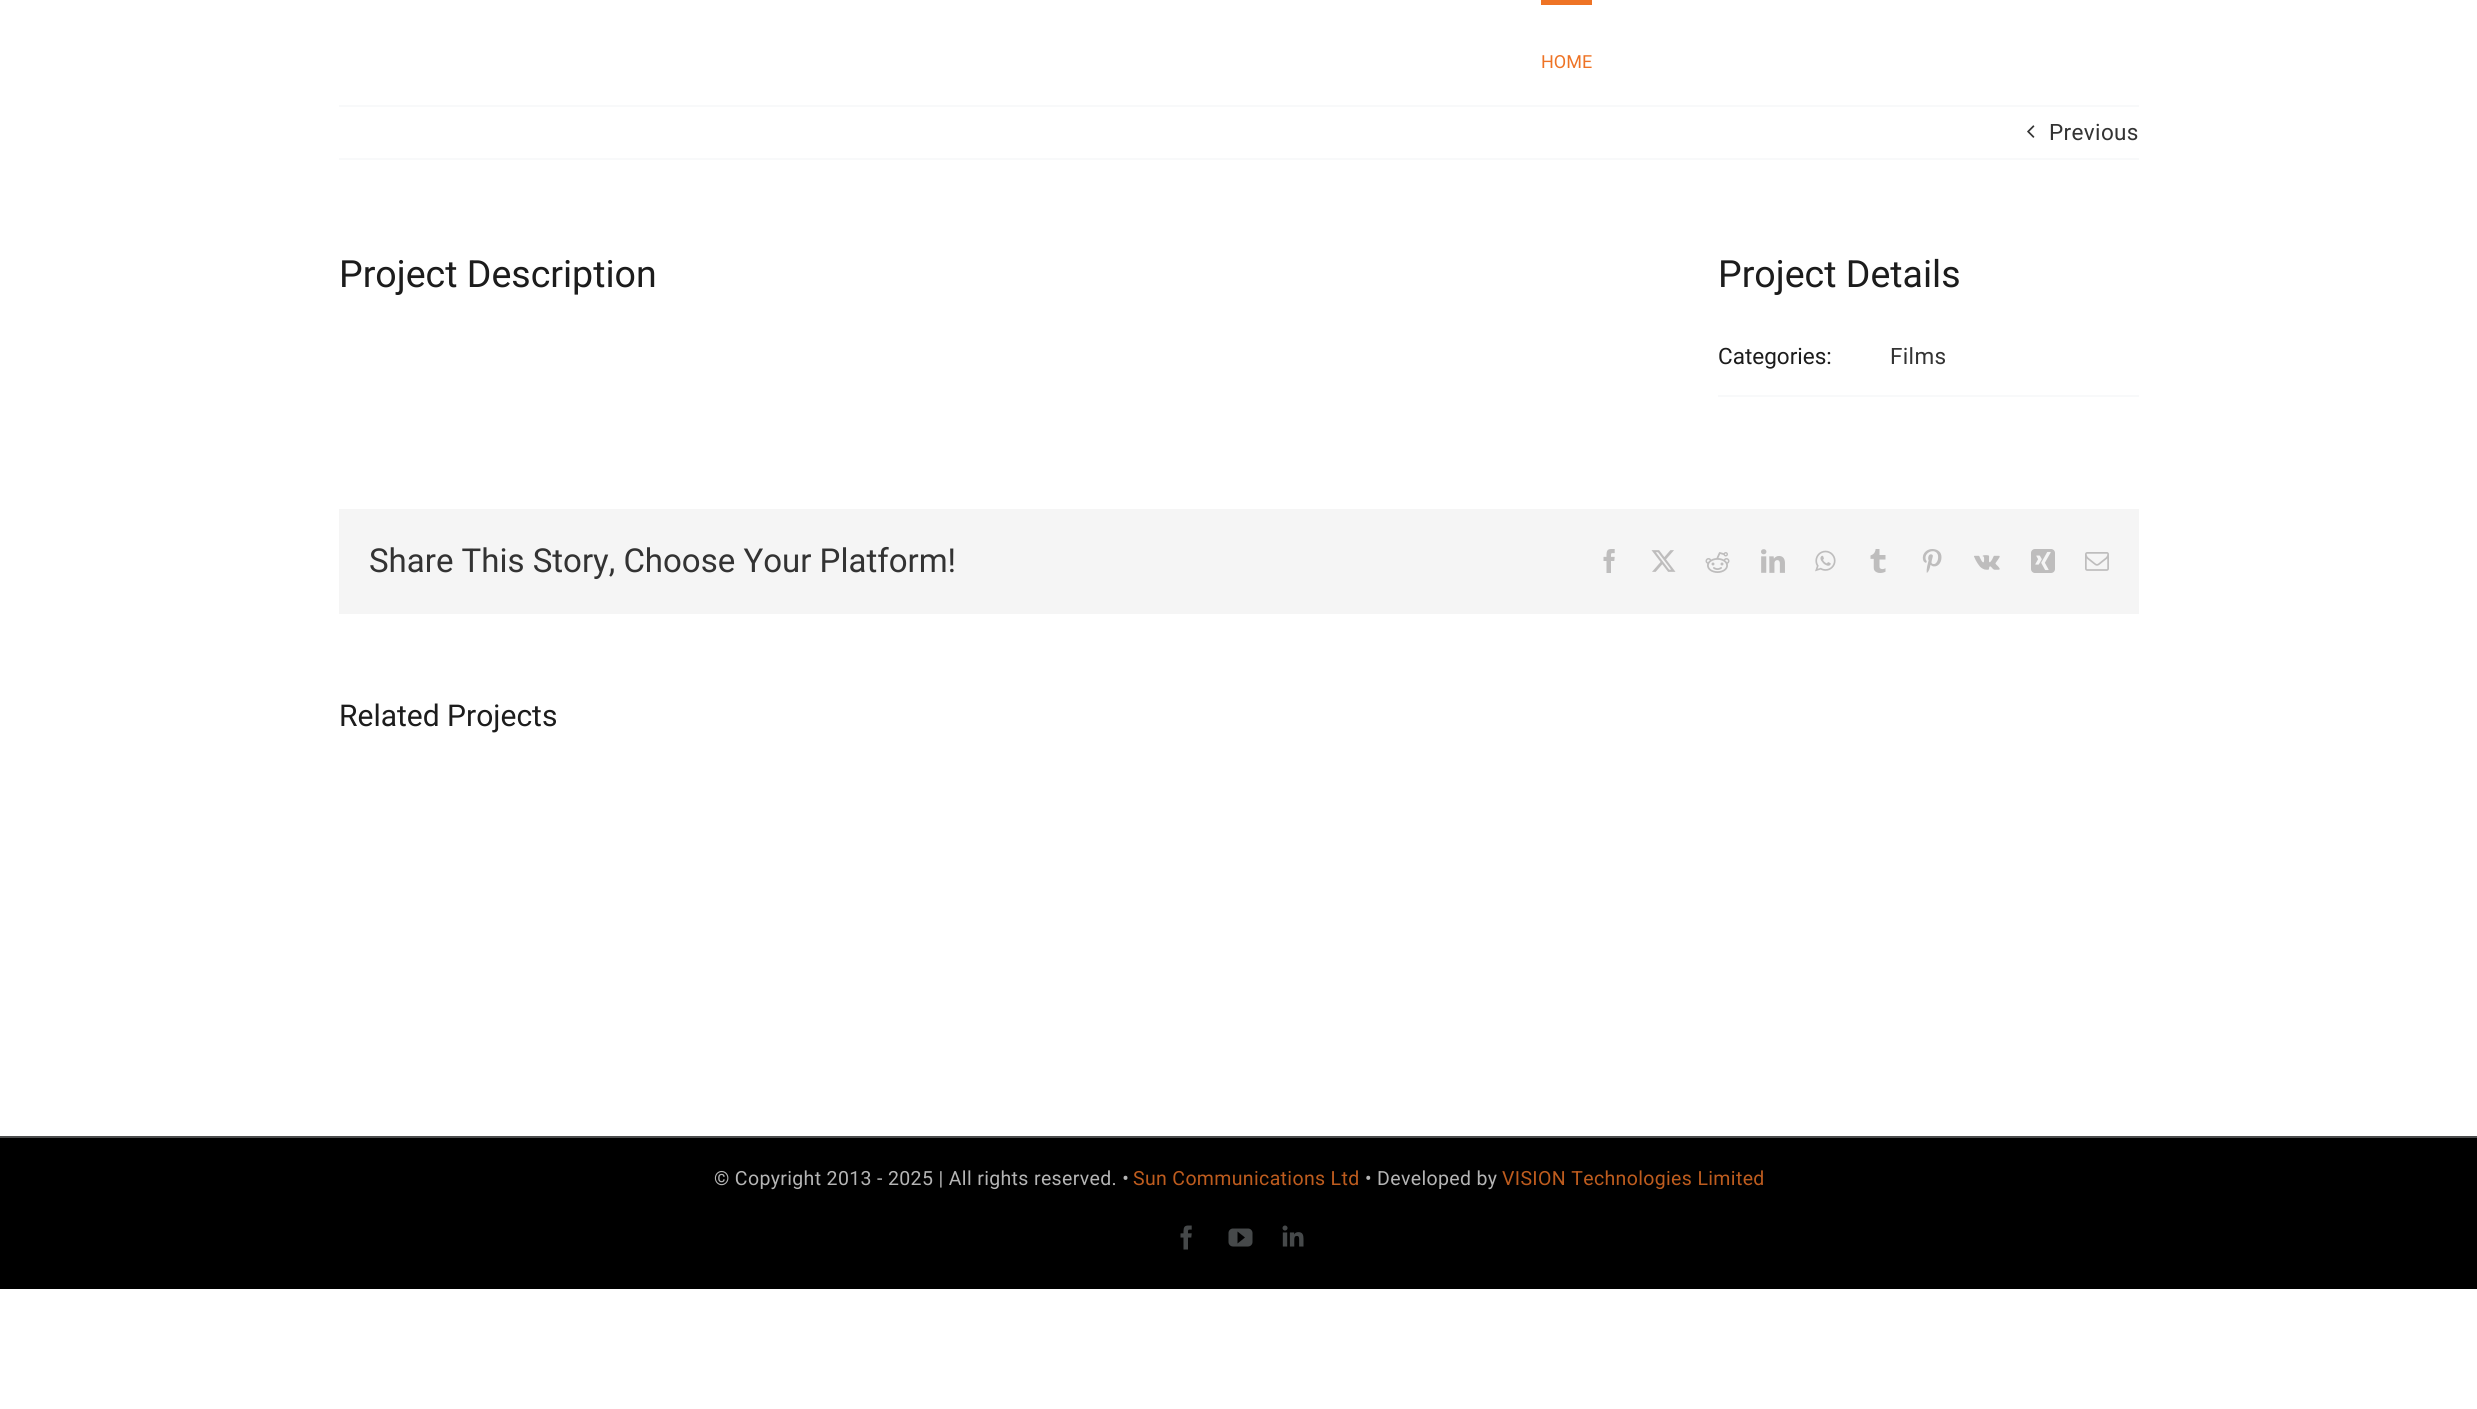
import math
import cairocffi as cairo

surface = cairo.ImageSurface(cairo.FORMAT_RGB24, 2477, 1409)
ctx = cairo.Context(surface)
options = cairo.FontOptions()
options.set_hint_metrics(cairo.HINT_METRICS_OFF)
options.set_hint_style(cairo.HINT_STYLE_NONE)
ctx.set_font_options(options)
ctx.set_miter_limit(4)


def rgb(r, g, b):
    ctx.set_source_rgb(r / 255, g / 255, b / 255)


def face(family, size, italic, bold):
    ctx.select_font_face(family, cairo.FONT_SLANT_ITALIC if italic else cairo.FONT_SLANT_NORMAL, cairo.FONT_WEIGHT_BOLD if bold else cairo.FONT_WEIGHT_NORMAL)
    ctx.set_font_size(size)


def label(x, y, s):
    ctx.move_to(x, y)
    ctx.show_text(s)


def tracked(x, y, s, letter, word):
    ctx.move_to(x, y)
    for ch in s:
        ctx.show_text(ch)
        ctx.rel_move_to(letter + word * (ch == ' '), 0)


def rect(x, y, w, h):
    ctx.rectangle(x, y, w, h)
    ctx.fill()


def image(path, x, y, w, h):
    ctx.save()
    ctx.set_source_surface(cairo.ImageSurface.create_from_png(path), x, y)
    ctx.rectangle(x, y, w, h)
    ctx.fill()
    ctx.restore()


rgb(255, 255, 255)
ctx.paint()
rgb(238, 115, 37)
rect(1541, 0, 51, 5)
face('Roboto', 18, 0, 0)
label(1541, 68, 'HOME')
rgb(248, 249, 250)
rect(339, 105, 1800, 2)
rect(339, 158, 1800, 2)
image('image0.png', 2027, 125, 8, 13)
face('Roboto', 22.5, 0, 0)
rgb(51, 51, 51)
tracked(2049, 140, 'Previous', 0.35, 0)
face('Roboto', 37.5, 0, 0)
rgb(28, 28, 28)
label(339, 287, 'Project Description')
label(1718, 287, 'Project Details')
rgb(248, 249, 250)
rect(1718, 395, 421, 2)
face('Roboto', 22.5, 0, 0)
rgb(28, 28, 28)
label(1718, 364, 'Categories:')
rgb(51, 51, 51)
tracked(1890, 364, 'Films', 0.35, 0)
rgb(245, 245, 245)
rect(339, 509, 1800, 105)
face('Roboto', 33, 0, 0)
rgb(51, 51, 51)
label(369, 572, 'Share This Story, Choose Your Platform!')
image('image1.png', 1603, 549, 12, 24)
image('image2.png', 1651, 550, 25, 22)
image('image3.png', 1705, 552, 25, 21)
image('image4.png', 1761, 549, 24, 24)
image('image5.png', 1815, 550, 21, 22)
image('image6.png', 1870, 549, 16, 24)
image('image7.png', 1922, 549, 20, 24)
image('image8.png', 1974, 555, 26, 15)
image('image9.png', 2031, 549, 24, 24)
image('image10.png', 2085, 552, 24, 19)
face('Roboto', 30, 0, 0)
rgb(28, 28, 28)
label(339, 726, 'Related Projects')
rgb(0, 0, 0)
rect(0, 1138, 2477, 151)
rgb(75, 76, 77)
rect(0, 1136, 2477, 2)
face('Roboto', 19.5, 0, 0)
rgb(181, 181, 181)
tracked(714, 1185, '© Copyright 2013 - 2025 | All rights reserved. •', 0.35, 0)
rgb(190, 92, 30)
tracked(1133, 1185, 'Sun Communications Ltd', 0.35, 0)
rgb(181, 181, 181)
tracked(1365, 1185, '• Developed by', 0.35, 0)
rgb(190, 92, 30)
tracked(1502, 1185, 'VISION Technologies Limited', 0.35, 0)
image('image11.png', 1180, 1225, 12, 25)
image('image12.png', 1228, 1228, 25, 19)
image('image13.png', 1282, 1225, 22, 22)
surface.write_to_png('render.png')
